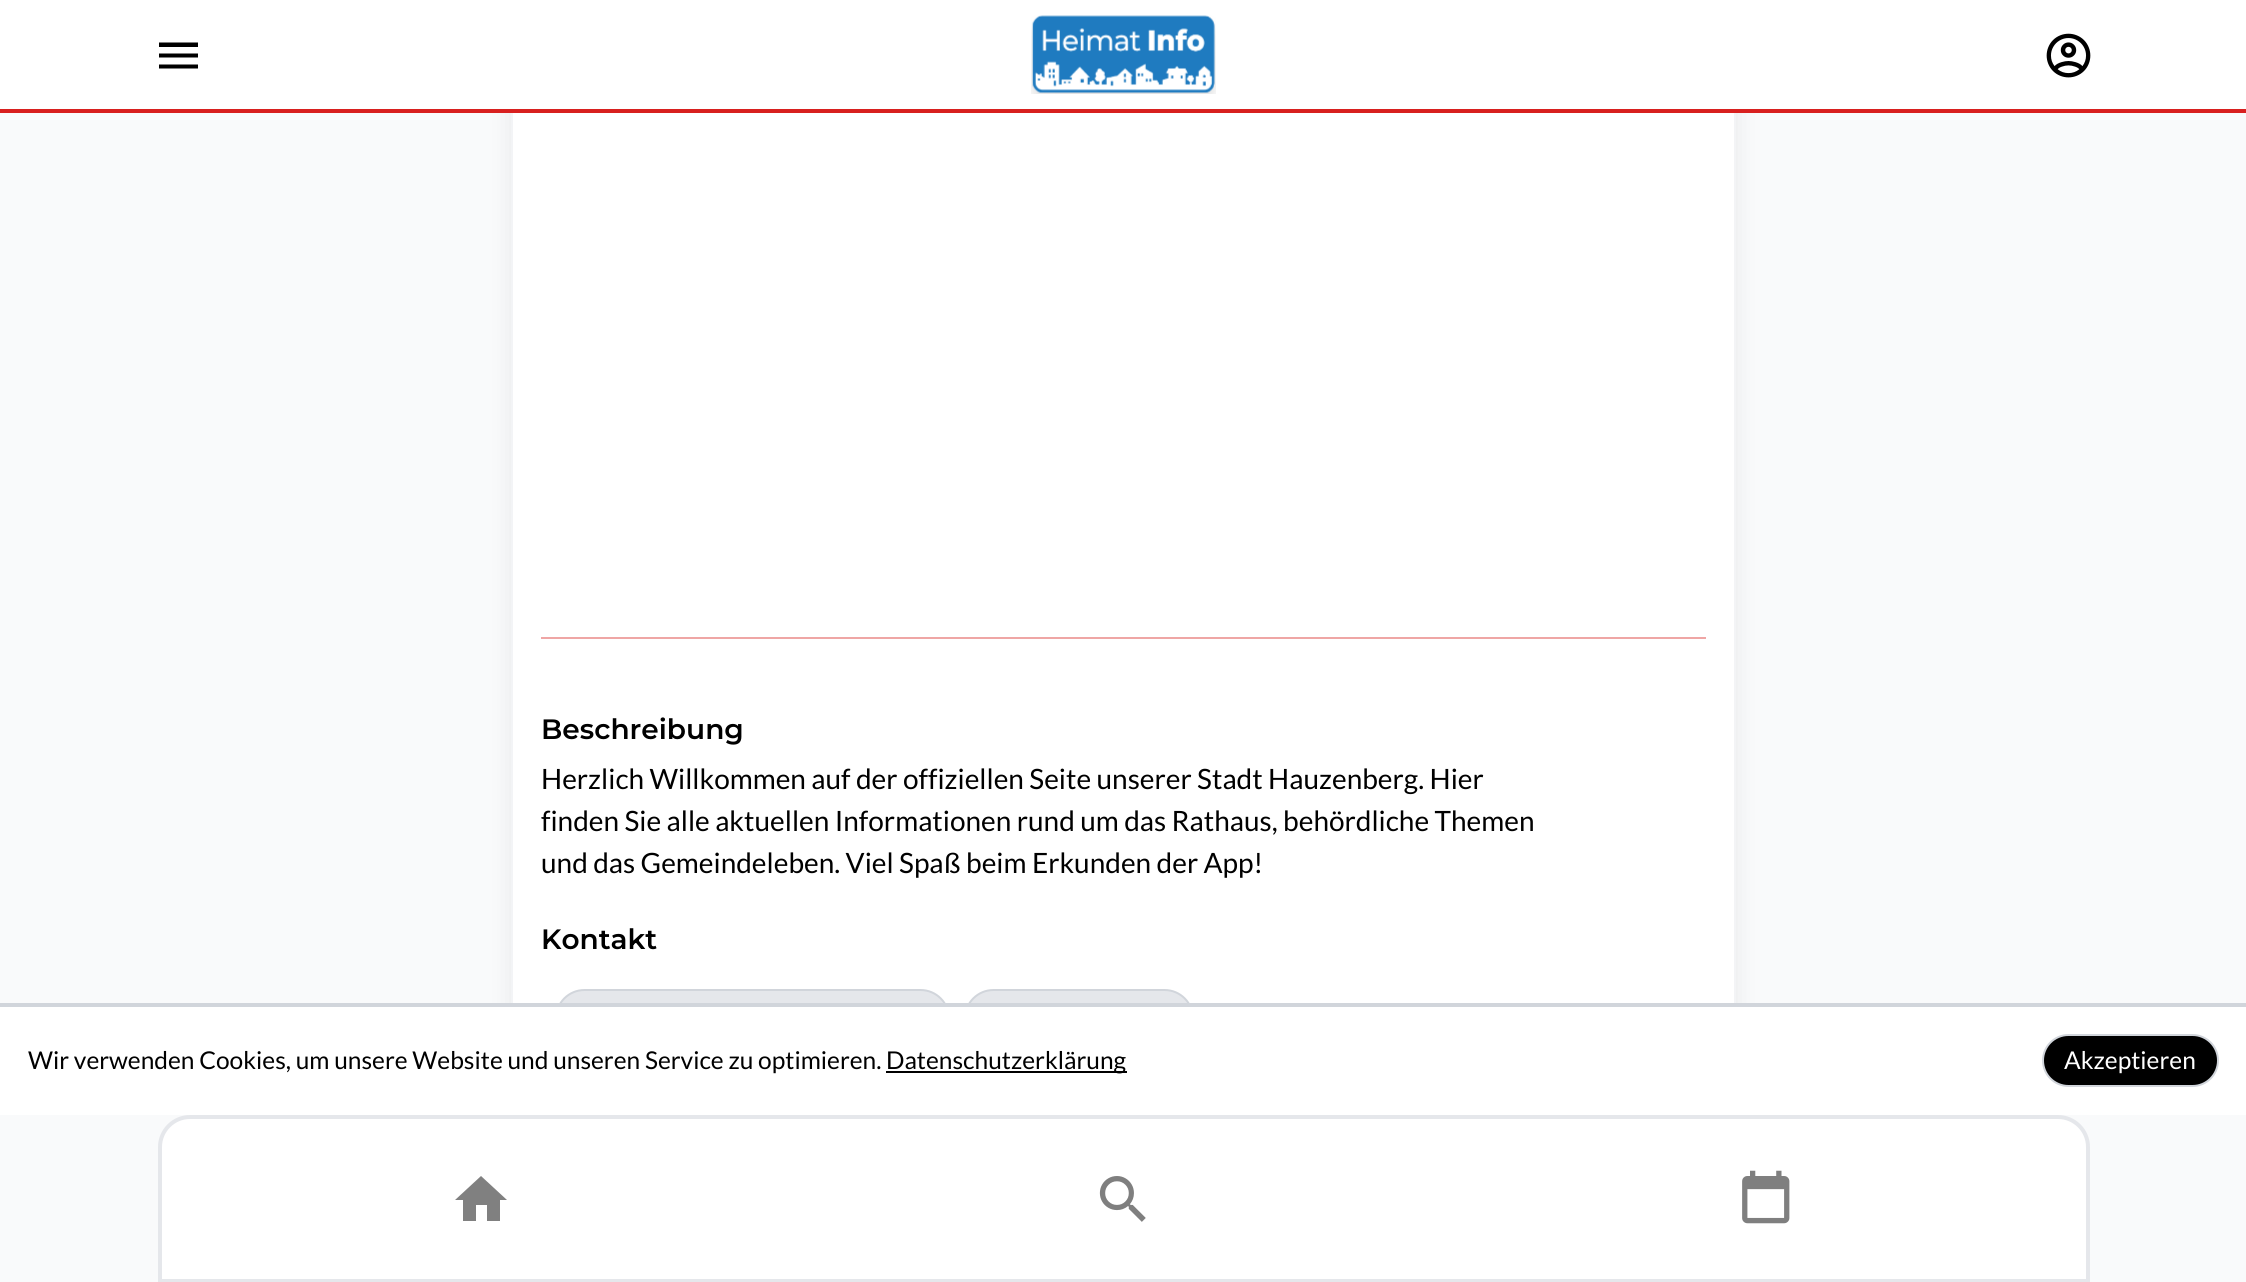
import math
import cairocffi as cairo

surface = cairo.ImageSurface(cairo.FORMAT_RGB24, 2246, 1282)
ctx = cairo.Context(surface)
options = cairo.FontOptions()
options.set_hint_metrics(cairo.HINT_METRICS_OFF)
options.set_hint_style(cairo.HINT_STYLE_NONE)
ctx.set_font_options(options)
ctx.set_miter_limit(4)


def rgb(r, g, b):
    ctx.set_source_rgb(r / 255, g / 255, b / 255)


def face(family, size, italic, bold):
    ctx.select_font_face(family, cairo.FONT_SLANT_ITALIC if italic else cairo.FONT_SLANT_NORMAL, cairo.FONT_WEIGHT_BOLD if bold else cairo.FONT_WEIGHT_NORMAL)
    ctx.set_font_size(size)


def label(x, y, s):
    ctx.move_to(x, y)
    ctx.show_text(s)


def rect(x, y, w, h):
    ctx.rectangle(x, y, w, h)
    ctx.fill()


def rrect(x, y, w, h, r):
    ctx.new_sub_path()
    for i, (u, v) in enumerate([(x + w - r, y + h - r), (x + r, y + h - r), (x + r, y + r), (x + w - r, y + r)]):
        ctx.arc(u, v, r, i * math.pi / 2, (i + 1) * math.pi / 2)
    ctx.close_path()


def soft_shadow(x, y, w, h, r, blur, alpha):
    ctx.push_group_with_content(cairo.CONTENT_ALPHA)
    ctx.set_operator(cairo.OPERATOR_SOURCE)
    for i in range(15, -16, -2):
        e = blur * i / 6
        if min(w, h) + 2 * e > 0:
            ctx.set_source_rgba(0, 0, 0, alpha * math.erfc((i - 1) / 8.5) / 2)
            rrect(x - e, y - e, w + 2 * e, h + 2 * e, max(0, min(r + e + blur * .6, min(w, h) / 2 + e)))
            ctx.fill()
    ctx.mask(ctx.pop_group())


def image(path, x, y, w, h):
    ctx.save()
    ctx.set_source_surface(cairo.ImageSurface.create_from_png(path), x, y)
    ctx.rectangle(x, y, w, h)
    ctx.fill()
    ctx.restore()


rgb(249, 250, 251)
ctx.paint()
rgb(0, 0, 0)
soft_shadow(516, -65, 1215, 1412, 26, 13, 0.1)
rgb(255, 255, 255)
rect(513, 113, 1221, 890)
ctx.rectangle(512, -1, 1223, 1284)
rgb(243, 244, 246)
ctx.stroke()
rgb(255, 255, 255)
rect(0, 0, 2246, 109)
rgb(216, 32, 31)
rect(0, 109, 2246, 4)
rgb(0, 0, 0)
ctx.new_path()
ctx.move_to(159, 42.5)
ctx.line_to(198, 42.5)
ctx.line_to(198, 47)
ctx.line_to(159, 47)
ctx.close_path()
ctx.move_to(159, 53.5)
ctx.line_to(198, 53.5)
ctx.line_to(198, 57.5)
ctx.line_to(159, 57.5)
ctx.close_path()
ctx.move_to(159, 64.5)
ctx.line_to(198, 64.5)
ctx.line_to(198, 68.5)
ctx.line_to(159, 68.5)
ctx.close_path()
ctx.fill()
image('image0.png', 1031, 15, 185, 79)
image('image1.png', 2046, 33, 45, 45)
rgb(239, 166, 165)
rect(541, 637, 1165, 2)
face('Montserrat Thin', 28, 0, 0)
rgb(0, 0, 0)
label(541, 739, 'Beschreibung')
face('Lato', 28, 0, 0)
label(541, 789, 'Herzlich Willkommen auf der offiziellen Seite unserer Stadt Hauzenberg. Hier')
label(541, 831, 'finden Sie alle aktuellen Informationen rund um das Rathaus, behördliche Themen')
label(541, 873, 'und das Gemeindeleben. Viel Spaß beim Erkunden der App!')
face('Montserrat Thin', 28, 0, 0)
label(541, 949, 'Kontakt')
rgb(229, 231, 235)
rrect(556, 990, 393, 57, 28.5)
ctx.fill_preserve()
rgb(209, 213, 219)
ctx.stroke()
rgb(229, 231, 235)
rrect(965, 990, 228, 57, 28.5)
ctx.fill_preserve()
rgb(209, 213, 219)
ctx.stroke()
rgb(255, 255, 255)
ctx.new_path()
ctx.move_to(190, 1117)
ctx.line_to(2058, 1117)
ctx.curve_to(2074.5, 1117, 2088, 1130.5, 2088, 1147)
ctx.line_to(2088, 1281)
ctx.line_to(160, 1281)
ctx.line_to(160, 1147)
ctx.curve_to(160, 1130.5, 173.5, 1117, 190, 1117)
ctx.close_path()
ctx.fill_preserve()
rgb(229, 231, 235)
ctx.set_line_width(4)
ctx.stroke()
rgb(128, 128, 128)
ctx.new_path()
ctx.move_to(476, 1221)
ctx.line_to(476, 1205)
ctx.line_to(487, 1205)
ctx.line_to(487, 1221)
ctx.line_to(500, 1221)
ctx.line_to(500, 1200)
ctx.line_to(507, 1200)
ctx.line_to(481, 1176)
ctx.line_to(455, 1200)
ctx.line_to(463, 1200)
ctx.line_to(463, 1221)
ctx.close_path()
ctx.fill()
image('image2.png', 1099, 1176, 47, 46)
image('image3.png', 1742, 1170, 48, 54)
rgb(255, 255, 255)
rect(0, 1007, 2246, 108)
rgb(209, 213, 219)
rect(0, 1003, 2246, 4)
face('Lato', 24.5, 0, 0)
rgb(0, 0, 0)
label(28, 1069, 'Wir verwenden Cookies, um unsere Website und unseren Service zu optimieren.')
rect(886, 1071, 241, 2)
label(886, 1069, 'Datenschutzerklärung')
rrect(2043, 1035, 175, 51, 25.5)
ctx.fill_preserve()
rgb(209, 213, 219)
ctx.set_line_width(2)
ctx.stroke()
rgb(255, 255, 255)
label(2064, 1069, 'Akzeptieren')
surface.write_to_png('render.png')
